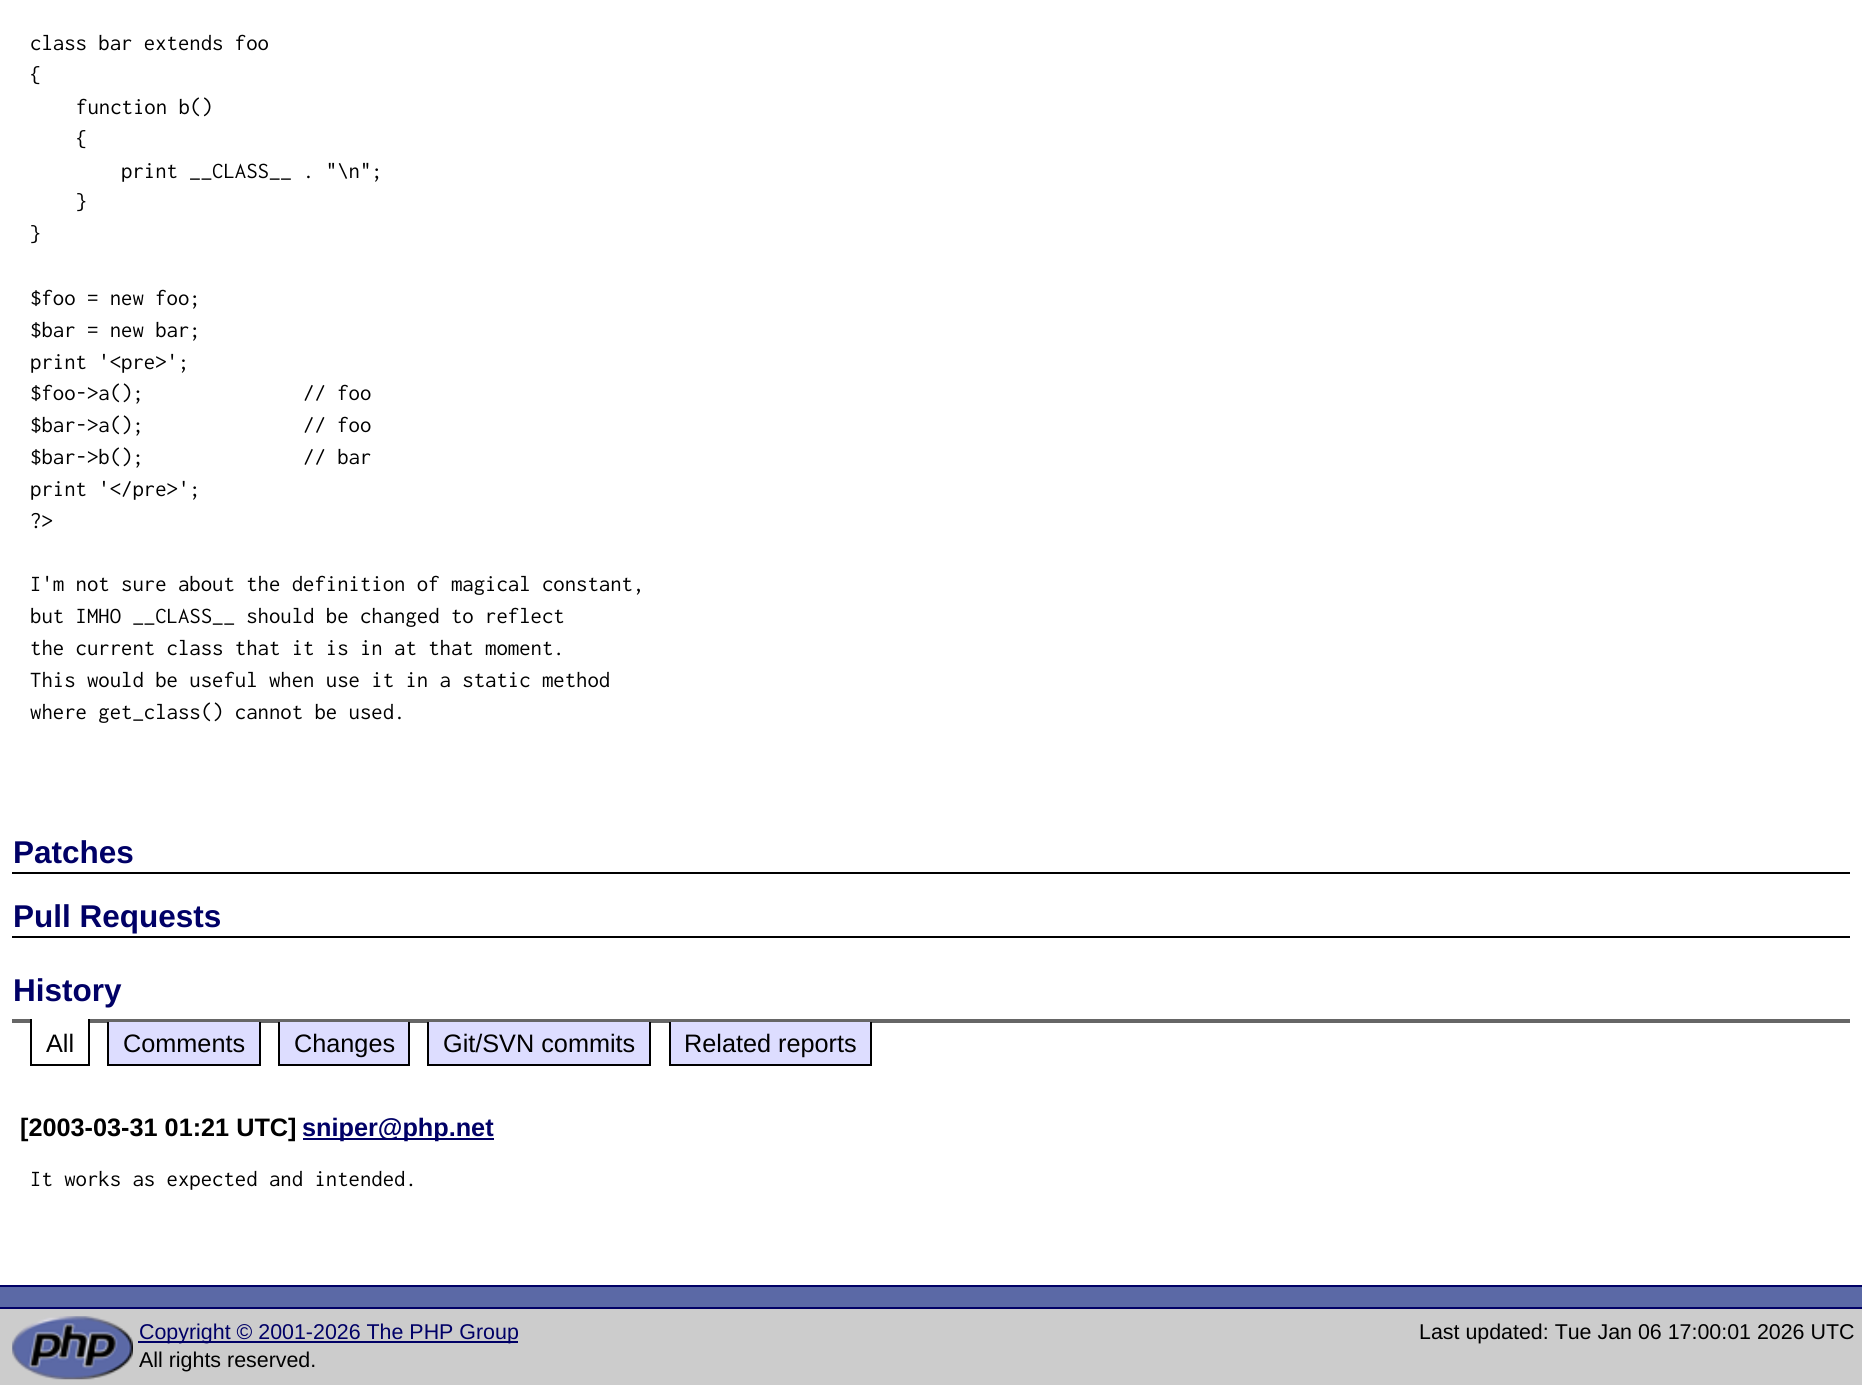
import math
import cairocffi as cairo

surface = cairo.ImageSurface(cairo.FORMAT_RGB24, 1862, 1385)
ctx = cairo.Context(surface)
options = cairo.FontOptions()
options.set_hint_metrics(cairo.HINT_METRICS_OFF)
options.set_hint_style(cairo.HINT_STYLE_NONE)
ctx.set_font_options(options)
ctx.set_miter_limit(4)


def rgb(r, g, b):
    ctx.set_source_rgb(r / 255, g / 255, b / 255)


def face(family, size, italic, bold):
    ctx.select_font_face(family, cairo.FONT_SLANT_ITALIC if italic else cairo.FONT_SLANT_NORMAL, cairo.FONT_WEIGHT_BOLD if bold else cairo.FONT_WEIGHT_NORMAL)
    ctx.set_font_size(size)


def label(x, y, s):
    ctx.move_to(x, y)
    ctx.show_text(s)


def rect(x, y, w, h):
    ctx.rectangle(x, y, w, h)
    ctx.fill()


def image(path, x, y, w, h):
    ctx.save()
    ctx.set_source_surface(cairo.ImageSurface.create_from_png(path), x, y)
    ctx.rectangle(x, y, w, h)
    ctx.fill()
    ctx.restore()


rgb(255, 255, 255)
ctx.paint()
face('Inconsolata', 22.75, 0, 0)
rgb(0, 0, 0)
label(30, 50, 'class bar extends foo')
label(30, 82, '{')
label(76, 114, 'function b()')
label(76, 146, '{')
label(121, 178, 'print __CLASS__ . "\\n";')
label(76, 209, '}')
label(30, 241, '}')
label(30, 305, '$foo = new foo;')
label(30, 337, '$bar = new bar;')
label(30, 369, 'print \'<pre>\';')
label(30, 400, '$foo->a();              // foo')
label(30, 432, '$bar->a();              // foo')
label(30, 464, '$bar->b();              // bar')
label(30, 496, 'print \'</pre>\';')
label(30, 528, '?>')
label(30, 591, 'I\'m not sure about the definition of magical constant,')
label(30, 623, 'but IMHO __CLASS__ should be changed to reflect')
label(30, 655, 'the current class that it is in at that moment.')
label(30, 687, 'This would be useful when use it in a static method')
label(30, 719, 'where get_class() cannot be used.')
rect(12, 872, 1838, 2)
face('Liberation Sans', 31.5, 0, 1)
rgb(0, 0, 102)
label(13, 863, 'Patches')
rgb(0, 0, 0)
rect(12, 936, 1838, 2)
rgb(0, 0, 102)
label(13, 927, 'Pull Requests')
rgb(102, 102, 102)
rect(12, 1019, 1838, 4)
rgb(0, 0, 102)
label(13, 1001, 'History')
rgb(255, 255, 255)
rect(32, 1019, 56, 4)
rgb(0, 0, 0)
rect(88, 1019, 2, 47)
rect(30, 1064, 59, 2)
rect(30, 1019, 2, 47)
face('Liberation Sans', 25.25, 0, 0)
label(46, 1052, 'All')
rgb(221, 221, 255)
rect(109, 1022, 150, 42)
rgb(0, 0, 0)
rect(259, 1022, 2, 44)
rect(107, 1064, 154, 2)
rect(107, 1022, 2, 44)
label(123, 1052, 'Comments')
rgb(221, 221, 255)
rect(280, 1022, 128, 42)
rgb(0, 0, 0)
rect(408, 1022, 2, 44)
rect(278, 1064, 132, 2)
rect(278, 1022, 2, 44)
label(294, 1052, 'Changes')
rgb(221, 221, 255)
rect(429, 1022, 220, 42)
rgb(0, 0, 0)
rect(649, 1022, 2, 44)
rect(427, 1064, 224, 2)
rect(427, 1022, 2, 44)
label(443, 1052, 'Git/SVN commits')
rgb(221, 221, 255)
rect(671, 1022, 199, 42)
rgb(0, 0, 0)
rect(870, 1022, 2, 44)
rect(669, 1064, 203, 2)
rect(669, 1022, 2, 44)
label(684, 1052, 'Related reports')
face('Liberation Sans', 25.25, 0, 1)
label(20, 1136, '[2003-03-31 01:21 UTC]')
rgb(0, 0, 102)
rect(303, 1138, 191, 2)
label(302, 1136, 'sniper@php.net')
face('Inconsolata', 22.75, 0, 0)
rgb(0, 0, 0)
label(30, 1186, 'It works as expected and intended.')
rgb(91, 105, 166)
rect(0, 1287, 1862, 20)
rgb(0, 0, 102)
rect(0, 1285, 1862, 2)
rect(0, 1307, 1862, 2)
rgb(204, 204, 204)
rect(0, 1309, 1862, 76)
image('image0.png', 12, 1316, 121, 64)
rgb(0, 0, 102)
rect(138, 1341, 380, 2)
face('Liberation Sans', 21.4, 0, 0)
label(139, 1339, 'Copyright © 2001-2026 The PHP Group')
rgb(0, 0, 0)
label(139, 1367, 'All rights reserved.')
label(1419, 1339, 'Last updated: Tue Jan 06 17:00:01 2026 UTC')
surface.write_to_png('render.png')
